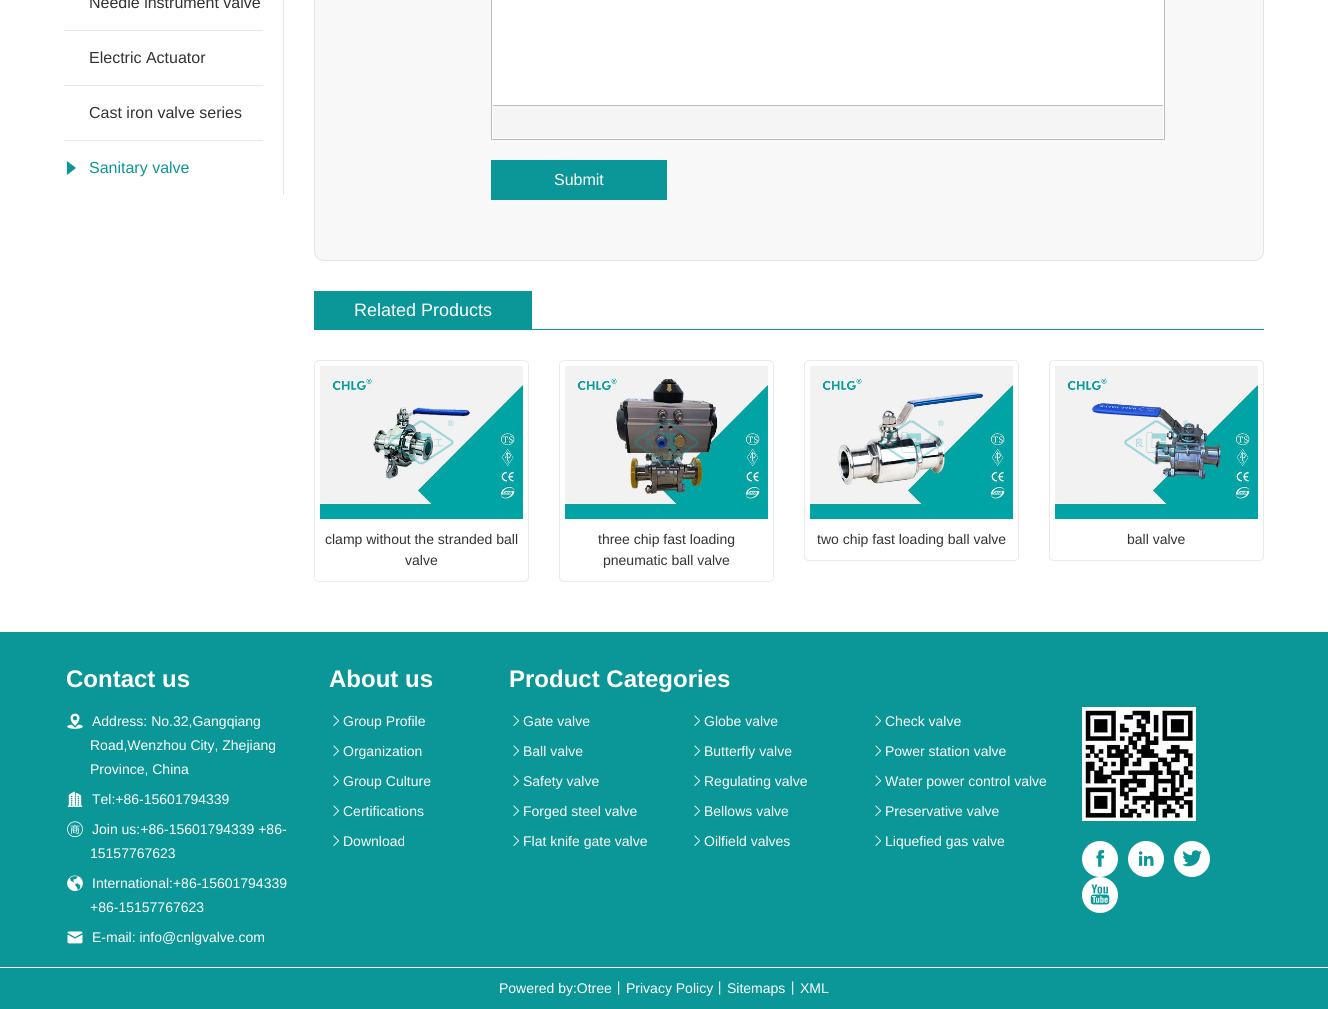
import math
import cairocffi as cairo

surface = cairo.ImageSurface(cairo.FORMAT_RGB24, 1328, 1009)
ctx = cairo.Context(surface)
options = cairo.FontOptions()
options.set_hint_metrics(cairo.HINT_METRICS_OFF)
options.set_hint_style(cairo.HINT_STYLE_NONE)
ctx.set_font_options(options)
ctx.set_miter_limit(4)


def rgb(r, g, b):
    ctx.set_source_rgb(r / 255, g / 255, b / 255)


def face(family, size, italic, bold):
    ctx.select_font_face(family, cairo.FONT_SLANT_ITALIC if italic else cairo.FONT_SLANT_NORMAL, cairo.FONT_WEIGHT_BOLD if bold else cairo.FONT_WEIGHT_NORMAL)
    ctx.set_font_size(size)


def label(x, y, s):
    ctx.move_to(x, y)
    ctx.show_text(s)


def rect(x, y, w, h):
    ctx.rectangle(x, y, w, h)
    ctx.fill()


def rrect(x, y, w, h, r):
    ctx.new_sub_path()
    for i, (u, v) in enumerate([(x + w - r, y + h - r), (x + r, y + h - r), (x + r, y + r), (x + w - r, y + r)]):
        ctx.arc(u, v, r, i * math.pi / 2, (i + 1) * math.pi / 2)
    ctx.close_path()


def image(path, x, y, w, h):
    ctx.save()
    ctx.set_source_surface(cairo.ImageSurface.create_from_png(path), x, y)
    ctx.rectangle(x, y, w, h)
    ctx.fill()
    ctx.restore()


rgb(255, 255, 255)
ctx.paint()
rgb(232, 232, 232)
rect(283, 0, 1, 195)
rect(64, 30, 199, 1)
face('Liberation Sans', 16, 0, 0)
rgb(51, 51, 51)
label(89, 8, 'Needle instrument valve')
rgb(232, 232, 232)
rect(64, 85, 199, 1)
rgb(51, 51, 51)
label(89, 63, 'Electric Actuator')
rgb(232, 232, 232)
rect(64, 140, 199, 1)
rgb(51, 51, 51)
label(89, 118, 'Cast iron valve series')
rgb(11, 150, 151)
ctx.new_path()
ctx.move_to(76, 168)
ctx.line_to(67, 175)
ctx.line_to(67, 161)
ctx.close_path()
ctx.fill()
label(89, 173, 'Sanitary valve')
rgb(248, 248, 248)
rrect(314.5, -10.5, 949, 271, 9.5)
ctx.fill_preserve()
rgb(228, 228, 228)
ctx.set_line_width(1)
ctx.stroke()
rgb(255, 255, 255)
ctx.rectangle(491.5, -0.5, 673, 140)
ctx.fill_preserve()
rgb(187, 187, 187)
ctx.stroke()
rgb(245, 245, 245)
rect(493, 106, 670, 32)
rgb(187, 187, 187)
rect(493, 105, 670, 1)
rgb(11, 150, 151)
rect(491, 160, 176, 40)
rgb(255, 255, 255)
label(554, 185, 'Submit')
rgb(11, 150, 151)
rect(314, 329, 950, 1)
rect(314, 291, 218, 38)
face('Liberation Sans', 18, 0, 0)
rgb(255, 255, 255)
label(354, 316, 'Related Products')
rrect(314.5, 360.5, 214, 221, 4.5)
rgb(234, 234, 234)
ctx.stroke()
image('image0.png', 320, 366, 203, 153)
image('image1.png', 389, 420, 65, 45)
face('Liberation Sans', 14, 0, 0)
rgb(51, 51, 51)
label(325, 544, 'clamp without the stranded ball')
label(405, 565, 'valve')
rrect(559.5, 360.5, 214, 221, 4.5)
rgb(234, 234, 234)
ctx.stroke()
image('image2.png', 565, 366, 203, 153)
image('image3.png', 634, 420, 65, 45)
rgb(51, 51, 51)
label(598, 544, 'three chip fast loading')
label(603, 565, 'pneumatic ball valve')
rrect(804.5, 360.5, 214, 200, 4.5)
rgb(234, 234, 234)
ctx.stroke()
image('image4.png', 810, 366, 203, 153)
image('image5.png', 879, 420, 65, 45)
rgb(51, 51, 51)
label(817, 544, 'two chip fast loading ball valve')
rrect(1049.5, 360.5, 214, 200, 4.5)
rgb(234, 234, 234)
ctx.stroke()
image('image6.png', 1055, 366, 203, 153)
image('image7.png', 1124, 420, 65, 45)
rgb(51, 51, 51)
label(1127, 544, 'ball valve')
rgb(11, 150, 151)
rect(0, 632, 1328, 335)
face('Liberation Sans', 24, 0, 1)
rgb(255, 255, 255)
label(66, 687, 'Contact us')
image('image8.png', 67, 713, 16, 16)
face('Liberation Sans', 14, 0, 0)
label(92, 726, 'Address: No.32,Gangqiang')
label(90, 750, 'Road,Wenzhou City, Zhejiang')
label(90, 774, 'Province, China')
image('image9.png', 67, 791, 16, 16)
label(92, 804, 'Tel:+86-15601794339')
image('image10.png', 67, 821, 16, 17)
label(92, 834, 'Join us:+86-15601794339 +86-')
label(90, 858, '15157767623')
image('image11.png', 67, 875, 16, 16)
label(92, 888, 'International:+86-15601794339')
label(90, 912, '+86-15157767623')
image('image12.png', 67, 931, 16, 13)
label(92, 942, 'E-mail: info@cnlgvalve.com')
face('Liberation Sans', 24, 0, 1)
label(329, 687, 'About us')
image('image13.png', 333, 715, 6, 11)
face('Liberation Sans', 14, 0, 0)
label(343, 726, 'Group Profile')
image('image13.png', 333, 745, 6, 11)
label(343, 756, 'Organization')
image('image13.png', 333, 775, 6, 11)
label(343, 786, 'Group Culture')
image('image13.png', 333, 805, 6, 11)
label(343, 816, 'Certifications')
image('image13.png', 333, 835, 6, 11)
label(343, 846, 'Download')
face('Liberation Sans', 24, 0, 1)
label(509, 687, 'Product Categories')
image('image13.png', 513, 715, 6, 11)
face('Liberation Sans', 14, 0, 0)
label(523, 726, 'Gate valve')
image('image13.png', 694, 715, 6, 11)
label(704, 726, 'Globe valve')
image('image13.png', 875, 715, 6, 11)
label(885, 726, 'Check valve')
image('image13.png', 513, 745, 6, 11)
label(523, 756, 'Ball valve')
image('image13.png', 694, 745, 6, 11)
label(704, 756, 'Butterfly valve')
image('image13.png', 875, 745, 6, 11)
label(885, 756, 'Power station valve')
image('image13.png', 513, 775, 6, 11)
label(523, 786, 'Safety valve')
image('image13.png', 694, 775, 6, 11)
label(704, 786, 'Regulating valve')
image('image13.png', 875, 775, 6, 11)
label(885, 786, 'Water power control valve')
image('image13.png', 513, 805, 6, 11)
label(523, 816, 'Forged steel valve')
image('image13.png', 694, 805, 6, 11)
label(704, 816, 'Bellows valve')
image('image13.png', 875, 805, 6, 11)
label(885, 816, 'Preservative valve')
image('image13.png', 513, 835, 6, 11)
label(523, 846, 'Flat knife gate valve')
image('image13.png', 694, 835, 6, 11)
label(704, 846, 'Oilfield valves')
image('image13.png', 875, 835, 6, 11)
label(885, 846, 'Liquefied gas valve')
image('image14.png', 1082, 707, 114, 114)
ctx.arc(1100, 859, 18, 0, 2 * math.pi)
ctx.fill()
image('image15.png', 1096, 850, 9, 17)
ctx.arc(1146, 859, 18, 0, 2 * math.pi)
ctx.fill()
image('image16.png', 1138, 851, 16, 15)
ctx.arc(1192, 859, 18, 0, 2 * math.pi)
ctx.fill()
image('image17.png', 1182, 850, 20, 17)
ctx.arc(1100, 895, 18, 0, 2 * math.pi)
ctx.fill()
image('image18.png', 1090, 884, 20, 21)
rgb(11, 150, 151)
rect(0, 968, 1328, 41)
rgb(255, 255, 255)
label(499, 993, 'Powered by:Otree')
face('WenQuanYi Zen Hei Medium', 14, 0, 0)
label(612, 993, '丨')
face('Liberation Sans', 14, 0, 0)
label(626, 993, 'Privacy Policy')
face('WenQuanYi Zen Hei Medium', 14, 0, 0)
label(713, 993, '丨')
face('Liberation Sans', 14, 0, 0)
label(727, 993, 'Sitemaps')
face('WenQuanYi Zen Hei Medium', 14, 0, 0)
label(786, 993, '丨')
face('Liberation Sans', 14, 0, 0)
label(800, 993, 'XML')
surface.write_to_png('render.png')
